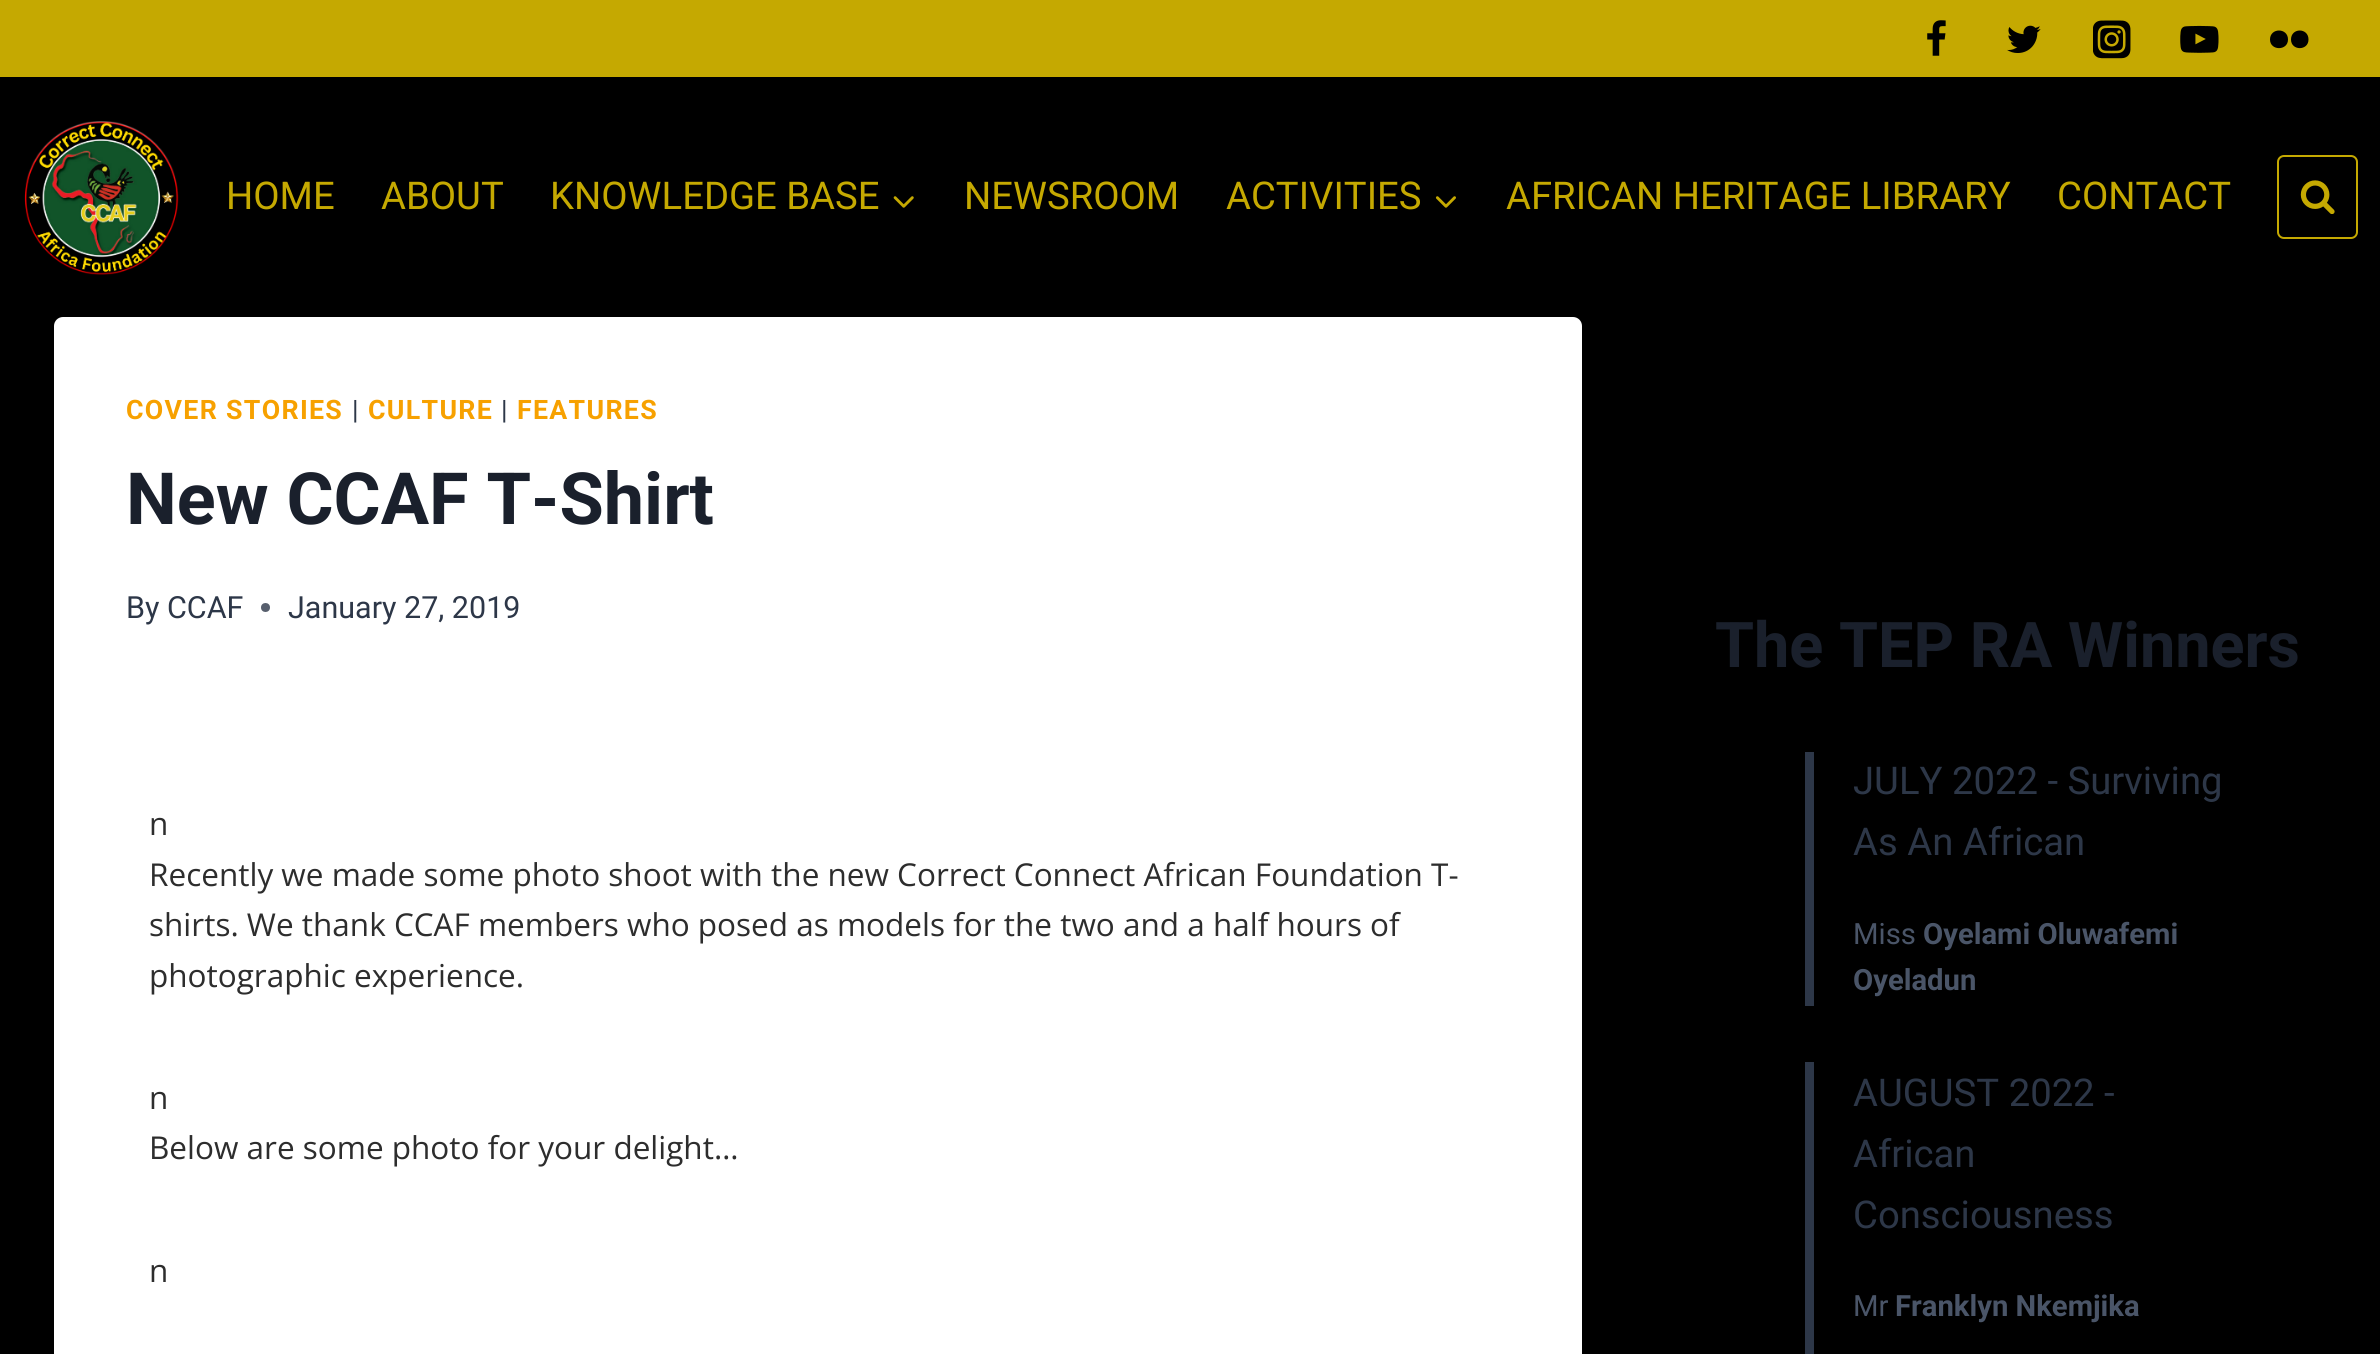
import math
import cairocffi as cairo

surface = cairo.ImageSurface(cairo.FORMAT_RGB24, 2380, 1354)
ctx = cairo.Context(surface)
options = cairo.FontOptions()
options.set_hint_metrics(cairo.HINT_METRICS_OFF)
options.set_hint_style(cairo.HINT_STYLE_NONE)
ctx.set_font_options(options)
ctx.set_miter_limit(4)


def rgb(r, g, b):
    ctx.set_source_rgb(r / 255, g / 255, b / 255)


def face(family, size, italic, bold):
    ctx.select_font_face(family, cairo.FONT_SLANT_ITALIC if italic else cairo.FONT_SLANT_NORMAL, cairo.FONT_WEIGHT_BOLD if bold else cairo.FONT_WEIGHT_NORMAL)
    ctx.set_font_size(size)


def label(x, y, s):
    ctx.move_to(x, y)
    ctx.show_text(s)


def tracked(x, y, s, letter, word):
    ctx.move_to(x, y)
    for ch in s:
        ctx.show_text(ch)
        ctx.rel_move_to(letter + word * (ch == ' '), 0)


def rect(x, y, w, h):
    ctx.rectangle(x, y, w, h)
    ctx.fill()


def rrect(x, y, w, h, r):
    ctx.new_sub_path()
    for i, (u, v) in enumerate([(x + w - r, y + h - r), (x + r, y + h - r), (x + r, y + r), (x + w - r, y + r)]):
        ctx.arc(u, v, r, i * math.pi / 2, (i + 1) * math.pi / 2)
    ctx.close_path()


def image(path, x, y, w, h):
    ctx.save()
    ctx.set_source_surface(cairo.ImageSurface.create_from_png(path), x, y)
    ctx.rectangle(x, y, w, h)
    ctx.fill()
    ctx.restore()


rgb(0, 0, 0)
ctx.paint()
rgb(197, 169, 1)
rect(0, 0, 2380, 77)
image('image0.png', 1927, 20, 19, 36)
image('image1.png', 2007, 25, 34, 28)
image('image2.png', 2093, 20, 38, 39)
image('image3.png', 2180, 25, 39, 28)
rgb(0, 0, 0)
ctx.new_path()
ctx.move_to(2270, 39.5)
ctx.curve_to(2270, 51, 2288, 51, 2288, 39.5)
ctx.curve_to(2288, 27.5, 2270, 27.5, 2270, 39.5)
ctx.close_path()
ctx.move_to(2291, 39.5)
ctx.curve_to(2291, 51, 2308.5, 51, 2308.5, 39.5)
ctx.curve_to(2308.5, 27.5, 2291, 27.5, 2291, 39.5)
ctx.close_path()
ctx.fill()
image('image4.png', 24, 121, 155, 154)
face('Roboto', 38.25, 0, 0)
rgb(197, 169, 1)
label(226, 209, 'HOME')
label(381, 209, 'ABOUT')
label(550, 209, 'KNOWLEDGE BASE')
image('image5.png', 893, 196, 21, 12)
label(964, 209, 'NEWSROOM')
label(1226, 209, 'ACTIVITIES')
image('image6.png', 1435, 196, 21, 12)
label(1506, 209, 'AFRICAN HERITAGE LIBRARY')
label(2057, 209, 'CONTACT')
rrect(2278, 156, 79, 82, 6)
ctx.stroke()
image('image7.png', 2300, 180, 35, 34)
rgb(255, 255, 255)
rrect(54, 317, 1528, 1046, 9)
ctx.fill()
face('Roboto', 26.75, 0, 1)
rgb(247, 161, 0)
tracked(126, 419, 'COVER STORIES', 1.3, 0)
face('Roboto', 26.75, 0, 0)
rgb(45, 55, 72)
tracked(352, 419, '|', 1.3, 0)
face('Roboto', 26.75, 0, 1)
rgb(247, 161, 0)
tracked(368, 419, 'CULTURE', 1.3, 0)
face('Roboto', 26.75, 0, 0)
rgb(45, 55, 72)
tracked(501, 419, '|', 1.3, 0)
face('Roboto', 26.75, 0, 1)
rgb(247, 161, 0)
tracked(517, 419, 'FEATURES', 1.3, 0)
face('Roboto', 72, 0, 1)
rgb(26, 32, 44)
label(126, 524, 'New CCAF T-Shirt')
face('Roboto', 30.5, 0, 0)
rgb(45, 55, 72)
label(126, 618, 'By')
label(167, 618, 'CCAF')
rgb(87, 95, 109)
ctx.new_path()
ctx.arc(265.5, 607.5, 4.5, 0, 2 * math.pi)
ctx.fill()
rgb(45, 55, 72)
label(288, 618, 'January 27, 2019')
face('Open Sans', 31.5, 0, 0)
rgb(45, 45, 45)
label(149, 835, 'n')
label(149, 886, 'Recently we made some photo shoot with the new Correct Connect African Foundation T-')
label(149, 936, 'shirts. We thank CCAF members who posed as models for the two and a half hours of')
label(149, 987, 'photographic experience.')
label(149, 1109, 'n')
label(149, 1159, 'Below are some photo for your delight…')
label(149, 1282, 'n')
face('Roboto', 63, 0, 1)
rgb(26, 32, 44)
label(1715, 667, 'The TEP RA Winners')
rgb(45, 55, 72)
rect(1805, 752, 9, 254)
face('Roboto', 38.25, 0, 0)
label(1853, 794, 'JULY 2022 - Surviving')
label(1853, 855, 'As An African')
face('Roboto', 29.25, 0, 0)
rgb(74, 85, 104)
label(1853, 944, 'Miss')
face('Roboto', 29.25, 0, 1)
label(1923, 944, 'Oyelami Oluwafemi')
label(1853, 990, 'Oyeladun')
rgb(45, 55, 72)
rect(1805, 1062, 9, 292)
face('Roboto', 38.25, 0, 0)
label(1853, 1106, 'AUGUST 2022 -')
label(1853, 1167, 'African')
label(1853, 1228, 'Consciousness')
face('Roboto', 29.25, 0, 0)
rgb(74, 85, 104)
label(1853, 1316, 'Mr')
face('Roboto', 29.25, 0, 1)
label(1895, 1316, 'Franklyn Nkemjika')
surface.write_to_png('render.png')
